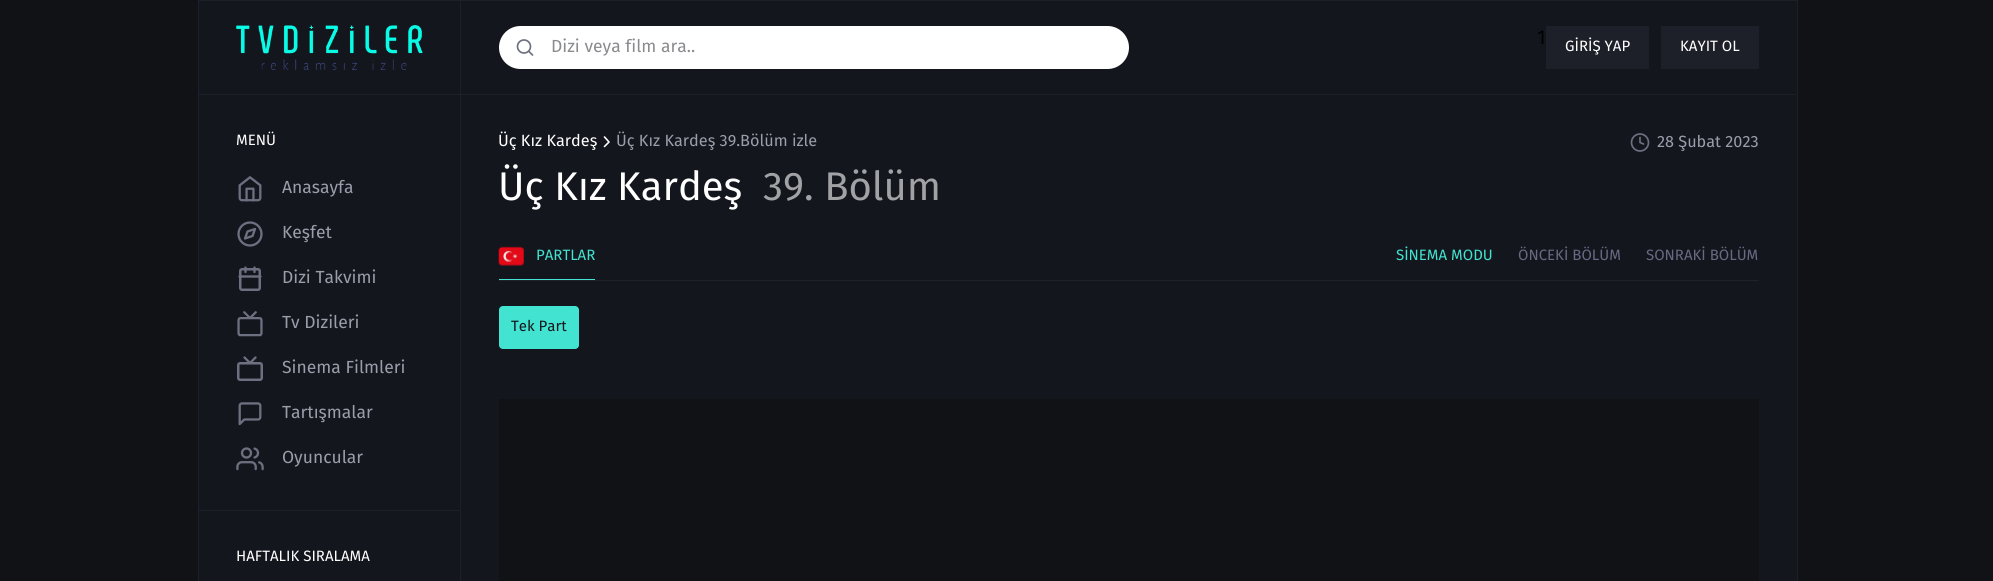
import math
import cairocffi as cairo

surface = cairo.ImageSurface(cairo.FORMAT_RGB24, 1993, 581)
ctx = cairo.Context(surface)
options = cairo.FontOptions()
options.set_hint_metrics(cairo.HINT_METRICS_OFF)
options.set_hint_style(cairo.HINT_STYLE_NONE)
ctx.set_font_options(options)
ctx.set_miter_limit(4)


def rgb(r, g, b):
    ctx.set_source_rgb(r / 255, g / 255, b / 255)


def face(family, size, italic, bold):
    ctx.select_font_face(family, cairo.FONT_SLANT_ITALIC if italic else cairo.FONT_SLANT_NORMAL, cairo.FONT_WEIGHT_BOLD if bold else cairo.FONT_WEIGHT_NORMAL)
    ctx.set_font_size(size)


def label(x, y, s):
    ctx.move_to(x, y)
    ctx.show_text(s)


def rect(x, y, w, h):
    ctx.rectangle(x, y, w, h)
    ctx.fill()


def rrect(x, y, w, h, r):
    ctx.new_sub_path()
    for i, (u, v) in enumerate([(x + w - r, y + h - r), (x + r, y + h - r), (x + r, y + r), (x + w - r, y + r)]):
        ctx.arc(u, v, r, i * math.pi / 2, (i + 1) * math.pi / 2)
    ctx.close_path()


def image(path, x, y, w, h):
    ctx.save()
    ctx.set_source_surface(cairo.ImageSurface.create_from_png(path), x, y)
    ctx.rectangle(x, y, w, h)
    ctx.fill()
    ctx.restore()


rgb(17, 18, 22)
ctx.paint()
rgb(20, 22, 29)
ctx.rectangle(198.5, 0.5, 1599, 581)
ctx.fill_preserve()
rgb(30, 32, 41)
ctx.set_line_width(1)
ctx.stroke()
rect(199, 94, 1597, 1)
rect(460, 1, 1, 93)
image('image0.png', 236, 25, 187, 45)
rgb(255, 255, 255)
rrect(499, 26, 630, 43, 21.5)
ctx.fill()
ctx.arc(524, 46.5, 6.5, 0, 2 * math.pi)
rgb(109, 112, 128)
ctx.set_line_width(1.7)
ctx.stroke()
ctx.new_path()
ctx.move_to(532.5, 55)
ctx.line_to(529, 51.5)
ctx.set_line_cap(cairo.LINE_CAP_ROUND)
ctx.set_line_join(cairo.LINE_JOIN_ROUND)
ctx.stroke()
face('Fira Sans', 17.5, 0, 0)
rgb(138, 139, 142)
label(551, 52, 'Dizi veya film ara..')
face('Fira Sans', 20, 0, 0)
rgb(0, 0, 0)
label(1537, 44, '1')
rgb(30, 32, 41)
rect(1546, 26, 103, 43)
face('Fira Sans', 15, 0, 0)
rgb(255, 255, 255)
label(1565, 51, 'GİRİŞ YAP')
rgb(30, 32, 41)
rect(1661, 26, 98, 43)
rgb(255, 255, 255)
label(1680, 51, 'KAYIT OL')
rgb(30, 32, 41)
rect(460, 95, 1, 486)
rgb(255, 255, 255)
label(236, 145, 'MENÜ')
image('image1.png', 238, 176, 24, 26)
face('Fira Sans', 17.5, 0, 0)
rgb(155, 157, 171)
label(282, 193, 'Anasayfa')
ctx.new_path()
ctx.arc(250, 234, 11.5, 0, 2 * math.pi)
rgb(109, 112, 128)
ctx.set_line_width(2.3)
ctx.set_line_cap(cairo.LINE_CAP_BUTT)
ctx.set_line_join(cairo.LINE_JOIN_MITER)
ctx.stroke()
ctx.new_path()
ctx.move_to(255, 229)
ctx.line_to(252.5, 236)
ctx.line_to(245, 238.5)
ctx.line_to(247.5, 231.5)
ctx.close_path()
ctx.set_line_cap(cairo.LINE_CAP_ROUND)
ctx.set_line_join(cairo.LINE_JOIN_ROUND)
ctx.stroke()
rgb(155, 157, 171)
label(282, 238, 'Keşfet')
rrect(240.25, 269.25, 19.5, 20.5, 1.75)
rgb(109, 112, 128)
ctx.set_line_width(2.5)
ctx.set_line_cap(cairo.LINE_CAP_BUTT)
ctx.set_line_join(cairo.LINE_JOIN_MITER)
ctx.stroke()
ctx.new_path()
ctx.move_to(254.5, 267.5)
ctx.line_to(254.5, 272)
ctx.move_to(245.5, 267.5)
ctx.line_to(245.5, 272)
ctx.move_to(239.5, 276.5)
ctx.line_to(260.5, 276.5)
ctx.set_line_width(2.3)
ctx.set_line_cap(cairo.LINE_CAP_ROUND)
ctx.set_line_join(cairo.LINE_JOIN_ROUND)
ctx.stroke()
rgb(155, 157, 171)
label(282, 283, 'Dizi Takvimi')
image('image2.png', 237, 311, 26, 26)
label(282, 328, 'Tv Dizileri')
rrect(238.25, 363.25, 23.5, 16.5, 1.75)
rgb(109, 112, 128)
ctx.set_line_width(2.5)
ctx.set_line_cap(cairo.LINE_CAP_BUTT)
ctx.set_line_join(cairo.LINE_JOIN_MITER)
ctx.stroke()
ctx.new_path()
ctx.move_to(255.5, 357.5)
ctx.line_to(250, 363)
ctx.line_to(244.5, 357.5)
ctx.set_line_width(2.3)
ctx.set_line_cap(cairo.LINE_CAP_ROUND)
ctx.set_line_join(cairo.LINE_JOIN_ROUND)
ctx.stroke()
rgb(155, 157, 171)
label(282, 373, 'Sinema Filmleri')
image('image3.png', 238, 402, 24, 24)
label(282, 418, 'Tartışmalar')
image('image4.png', 236, 447, 28, 24)
label(282, 463, 'Oyuncular')
rgb(30, 32, 41)
rect(199, 510, 261, 1)
face('Fira Sans', 15, 0, 0)
rgb(255, 255, 255)
label(236, 561, 'HAFTALIK SIRALAMA')
face('Fira Sans', 16.25, 0, 0)
label(498, 146, 'Üç Kız Kardeş')
ctx.new_path()
ctx.move_to(604.5, 146.5)
ctx.line_to(609, 142)
ctx.line_to(604.5, 137)
ctx.set_line_width(1.6)
ctx.stroke()
rgb(155, 157, 171)
label(616, 146, 'Üç Kız Kardeş 39.Bölüm izle')
face('Fira Sans', 40, 0, 0)
rgb(255, 255, 255)
label(498, 200, 'Üç Kız Kardeş')
rgb(161, 162, 165)
label(763, 200, '39. Bölüm')
ctx.new_path()
ctx.arc(1640, 142.5, 8.5, 0, 2 * math.pi)
rgb(109, 112, 128)
ctx.set_line_width(1.7)
ctx.set_line_cap(cairo.LINE_CAP_BUTT)
ctx.set_line_join(cairo.LINE_JOIN_MITER)
ctx.stroke()
ctx.new_path()
ctx.move_to(1640, 137.5)
ctx.line_to(1640, 142.5)
ctx.line_to(1643.5, 144)
ctx.set_line_cap(cairo.LINE_CAP_ROUND)
ctx.set_line_join(cairo.LINE_JOIN_ROUND)
ctx.stroke()
face('Fira Sans', 16.25, 0, 0)
rgb(155, 157, 171)
label(1657, 147, '28 Şubat 2023')
rgb(32, 34, 40)
rect(499, 280, 1260, 1)
rgb(66, 227, 208)
rect(499, 279, 96, 1)
image('image5.png', 498, 246, 26, 20)
face('Fira Sans', 15, 0, 0)
label(536, 260, 'PARTLAR')
label(1396, 260, 'SİNEMA MODU')
rgb(106, 104, 131)
label(1518, 260, 'ÖNCEKİ BÖLÜM')
label(1646, 260, 'SONRAKİ BÖLÜM')
rgb(66, 227, 208)
rrect(499, 306, 80, 43, 4)
ctx.fill()
rgb(20, 22, 29)
label(511, 331, 'Tek Part')
rgb(17, 18, 22)
rect(499, 399, 1260, 182)
surface.write_to_png('render.png')
